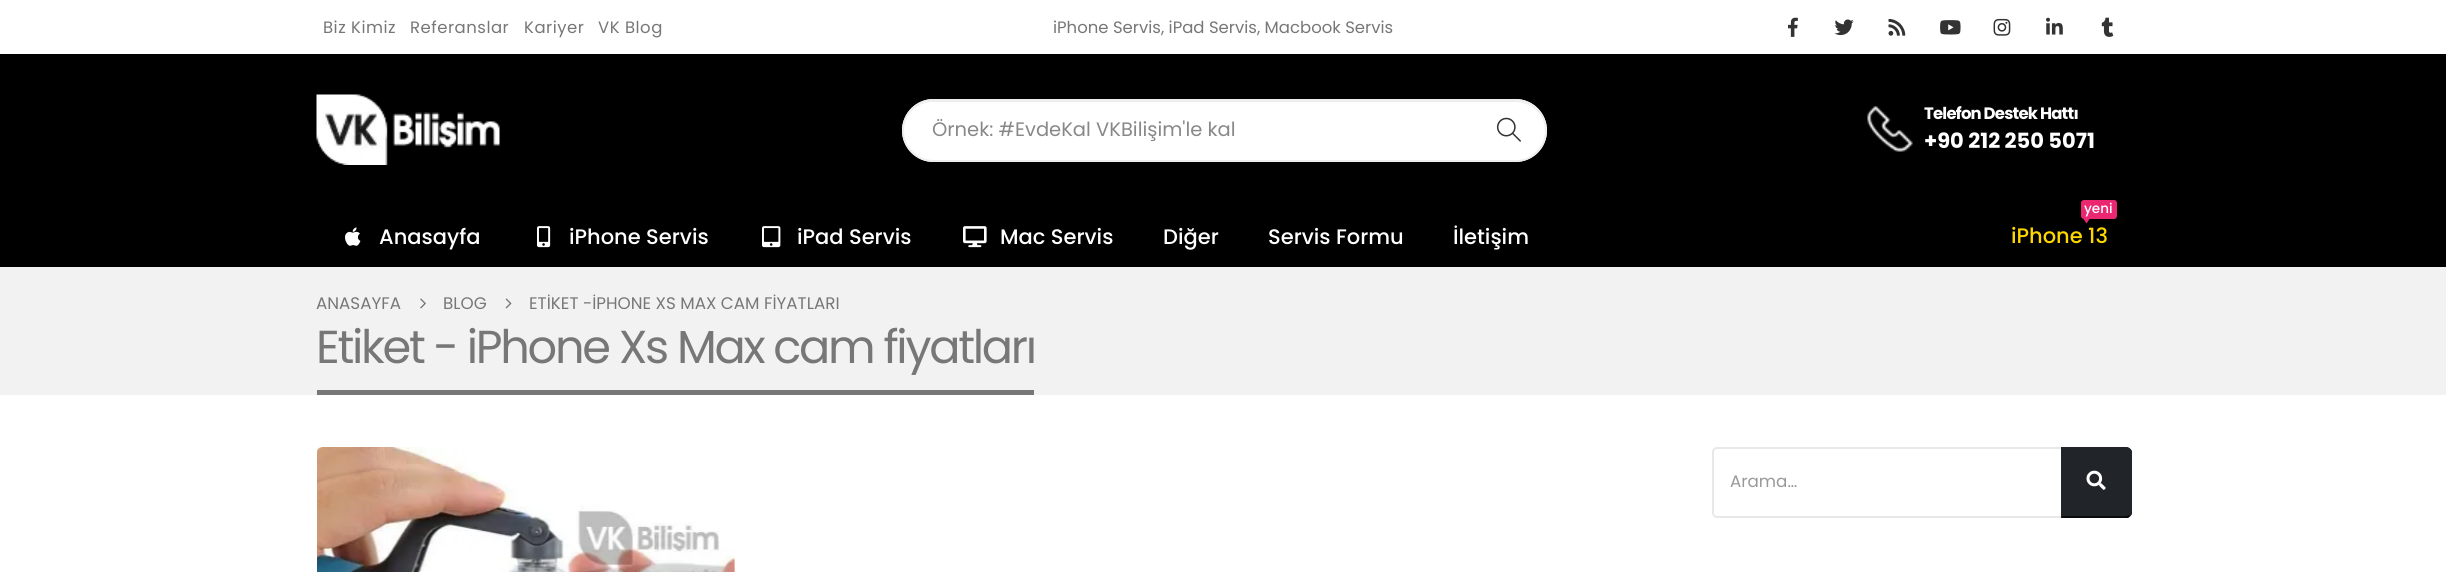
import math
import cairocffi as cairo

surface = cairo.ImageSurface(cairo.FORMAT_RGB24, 2446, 572)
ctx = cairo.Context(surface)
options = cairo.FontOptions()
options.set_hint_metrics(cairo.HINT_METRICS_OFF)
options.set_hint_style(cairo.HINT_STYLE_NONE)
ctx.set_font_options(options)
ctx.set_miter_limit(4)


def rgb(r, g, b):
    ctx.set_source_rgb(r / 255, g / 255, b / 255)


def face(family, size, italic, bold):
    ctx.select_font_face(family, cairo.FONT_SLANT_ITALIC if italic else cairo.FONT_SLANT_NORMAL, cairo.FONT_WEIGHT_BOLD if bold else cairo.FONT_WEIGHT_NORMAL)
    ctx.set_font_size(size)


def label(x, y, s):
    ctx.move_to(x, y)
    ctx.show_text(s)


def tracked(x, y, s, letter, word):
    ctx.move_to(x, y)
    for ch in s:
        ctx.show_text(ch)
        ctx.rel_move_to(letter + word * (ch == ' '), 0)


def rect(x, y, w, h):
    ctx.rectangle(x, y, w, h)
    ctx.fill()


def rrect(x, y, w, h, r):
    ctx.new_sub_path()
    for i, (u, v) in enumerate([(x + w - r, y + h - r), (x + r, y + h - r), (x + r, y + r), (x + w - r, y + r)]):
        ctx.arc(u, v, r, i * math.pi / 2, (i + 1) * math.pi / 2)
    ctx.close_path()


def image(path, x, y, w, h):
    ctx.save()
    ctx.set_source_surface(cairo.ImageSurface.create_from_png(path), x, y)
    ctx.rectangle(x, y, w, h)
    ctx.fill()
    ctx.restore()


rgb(255, 255, 255)
ctx.paint()
face('Poppins', 16.5, 0, 0)
rgb(119, 119, 119)
tracked(323, 33, 'Biz Kimiz', 0.5, 0)
tracked(410, 33, 'Referanslar', 0.5, 0)
tracked(524, 33, 'Kariyer', 0.5, 0)
tracked(598, 33, 'VK Blog', 0.5, 0)
label(1053, 33, 'iPhone Servis, iPad Servis, Macbook Servis')
image('image0.png', 1788, 17, 10, 20)
image('image1.png', 1834, 19, 20, 17)
image('image2.png', 1888, 18, 18, 18)
image('image3.png', 1940, 20, 21, 15)
image('image4.png', 1993, 18, 18, 18)
image('image5.png', 2046, 17, 17, 18)
image('image6.png', 2101, 17, 13, 20)
rgb(0, 0, 0)
rect(0, 54, 2446, 213)
image('image7.png', 316, 94, 184, 71)
rgb(255, 255, 255)
rrect(902, 99, 645, 63, 31.5)
ctx.fill()
rgb(236, 236, 236)
ctx.new_path()
ctx.move_to(933, 102)
ctx.line_to(1515, 102)
ctx.curve_to(1532, 102, 1545, 115, 1545, 131)
ctx.curve_to(1545, 115, 1532, 101, 1515, 101)
ctx.line_to(933, 101)
ctx.curve_to(916, 101, 903, 115, 903, 131)
ctx.curve_to(903, 115, 916, 102, 933, 102)
ctx.close_path()
ctx.fill()
rrect(903, 100, 643, 61, 30.5)
rgb(238, 238, 238)
ctx.stroke()
face('Poppins', 19.5, 0, 0)
rgb(136, 136, 136)
label(932, 136, 'Örnek: #EvdeKal VKBilişim\'le kal')
image('image8.png', 1496, 117, 25, 25)
image('image9.png', 1867, 106, 46, 46)
face('Poppins', 16.5, 0, 1)
rgb(255, 255, 255)
tracked(1924, 119, 'Telefon Destek Hattı', -0.8, 0)
face('Poppins', 21, 0, 1)
label(1924, 148, '+90 212 250 5071')
image('image10.png', 345, 227, 16, 19)
face('Poppins Medium', 21, 0, 0)
label(379, 244, 'Anasayfa')
image('image11.png', 537, 226, 14, 22)
label(569, 244, 'iPhone Servis')
image('image12.png', 762, 226, 19, 22)
label(797, 244, 'iPad Servis')
image('image13.png', 963, 226, 24, 22)
label(1000, 244, 'Mac Servis')
label(1163, 244, 'Diğer')
label(1268, 244, 'Servis Formu')
label(1453, 244, 'İletişim')
rgb(235, 39, 113)
rrect(2081, 200, 36, 19, 3)
ctx.fill()
face('Poppins Medium', 13.5, 0, 0)
rgb(255, 255, 255)
label(2084, 213, 'yeni')
rgb(235, 39, 113)
ctx.new_path()
ctx.move_to(2083.5, 219)
ctx.line_to(2089.5, 219)
ctx.line_to(2086.5, 223.5)
ctx.close_path()
ctx.fill()
face('Poppins Medium', 21, 0, 0)
rgb(255, 215, 0)
label(2011, 243, 'iPhone 13')
rgb(242, 242, 242)
rect(0, 267, 2446, 128)
face('Poppins', 16.75, 0, 0)
rgb(119, 119, 119)
label(316, 309, 'ANASAYFA')
image('image14.png', 420, 298, 6, 11)
label(443, 309, 'BLOG')
image('image15.png', 505, 298, 7, 11)
label(529, 309, 'ETİKET -İPHONE XS MAX CAM FİYATLARI')
face('Poppins', 46.25, 0, 0)
tracked(316, 363, 'Etiket - iPhone Xs Max cam fiyatları', -2.3, 0)
rect(317, 390, 717, 5)
image('image16.png', 317, 447, 418, 125)
ctx.new_path()
ctx.move_to(1717, 448)
ctx.line_to(2062, 448)
ctx.line_to(2062, 517)
ctx.line_to(1717, 517)
ctx.curve_to(1715, 517, 1713, 515, 1713, 513)
ctx.line_to(1713, 452)
ctx.curve_to(1713, 450, 1715, 448, 1717, 448)
ctx.close_path()
rgb(232, 232, 232)
ctx.stroke()
face('Poppins', 16.75, 0, 0)
rgb(153, 153, 153)
label(1730, 487, 'Arama…')
rgb(33, 37, 41)
ctx.new_path()
ctx.move_to(2061, 447)
ctx.line_to(2126, 447)
ctx.curve_to(2129.5, 447, 2132, 449.5, 2132, 453)
ctx.line_to(2132, 512)
ctx.curve_to(2132, 515.5, 2129.5, 518, 2126, 518)
ctx.line_to(2061, 518)
ctx.close_path()
ctx.fill()
ctx.new_path()
ctx.move_to(2061, 447)
ctx.line_to(2062, 448)
ctx.line_to(2126, 448)
ctx.line_to(2129, 450)
ctx.line_to(2130, 449)
ctx.curve_to(2129, 448, 2127, 447, 2126, 447)
ctx.close_path()
ctx.fill()
ctx.new_path()
ctx.move_to(2132, 514)
ctx.line_to(2130, 516)
ctx.line_to(2129, 515)
ctx.line_to(2130, 512)
ctx.line_to(2130, 463)
ctx.curve_to(2130, 460, 2131, 453, 2129, 450)
ctx.line_to(2130, 449)
ctx.line_to(2132, 451)
ctx.close_path()
ctx.fill()
rgb(11, 12, 13)
ctx.new_path()
ctx.move_to(2128, 518)
ctx.line_to(2061, 518)
ctx.line_to(2062, 516)
ctx.line_to(2126, 516)
ctx.line_to(2129, 515)
ctx.line_to(2130, 516)
ctx.close_path()
ctx.fill()
rgb(33, 37, 41)
ctx.new_path()
ctx.move_to(2061, 447)
ctx.line_to(2061, 518)
ctx.line_to(2062, 516)
ctx.line_to(2062, 448)
ctx.close_path()
ctx.fill()
image('image17.png', 2086, 470, 20, 20)
surface.write_to_png('render.png')
